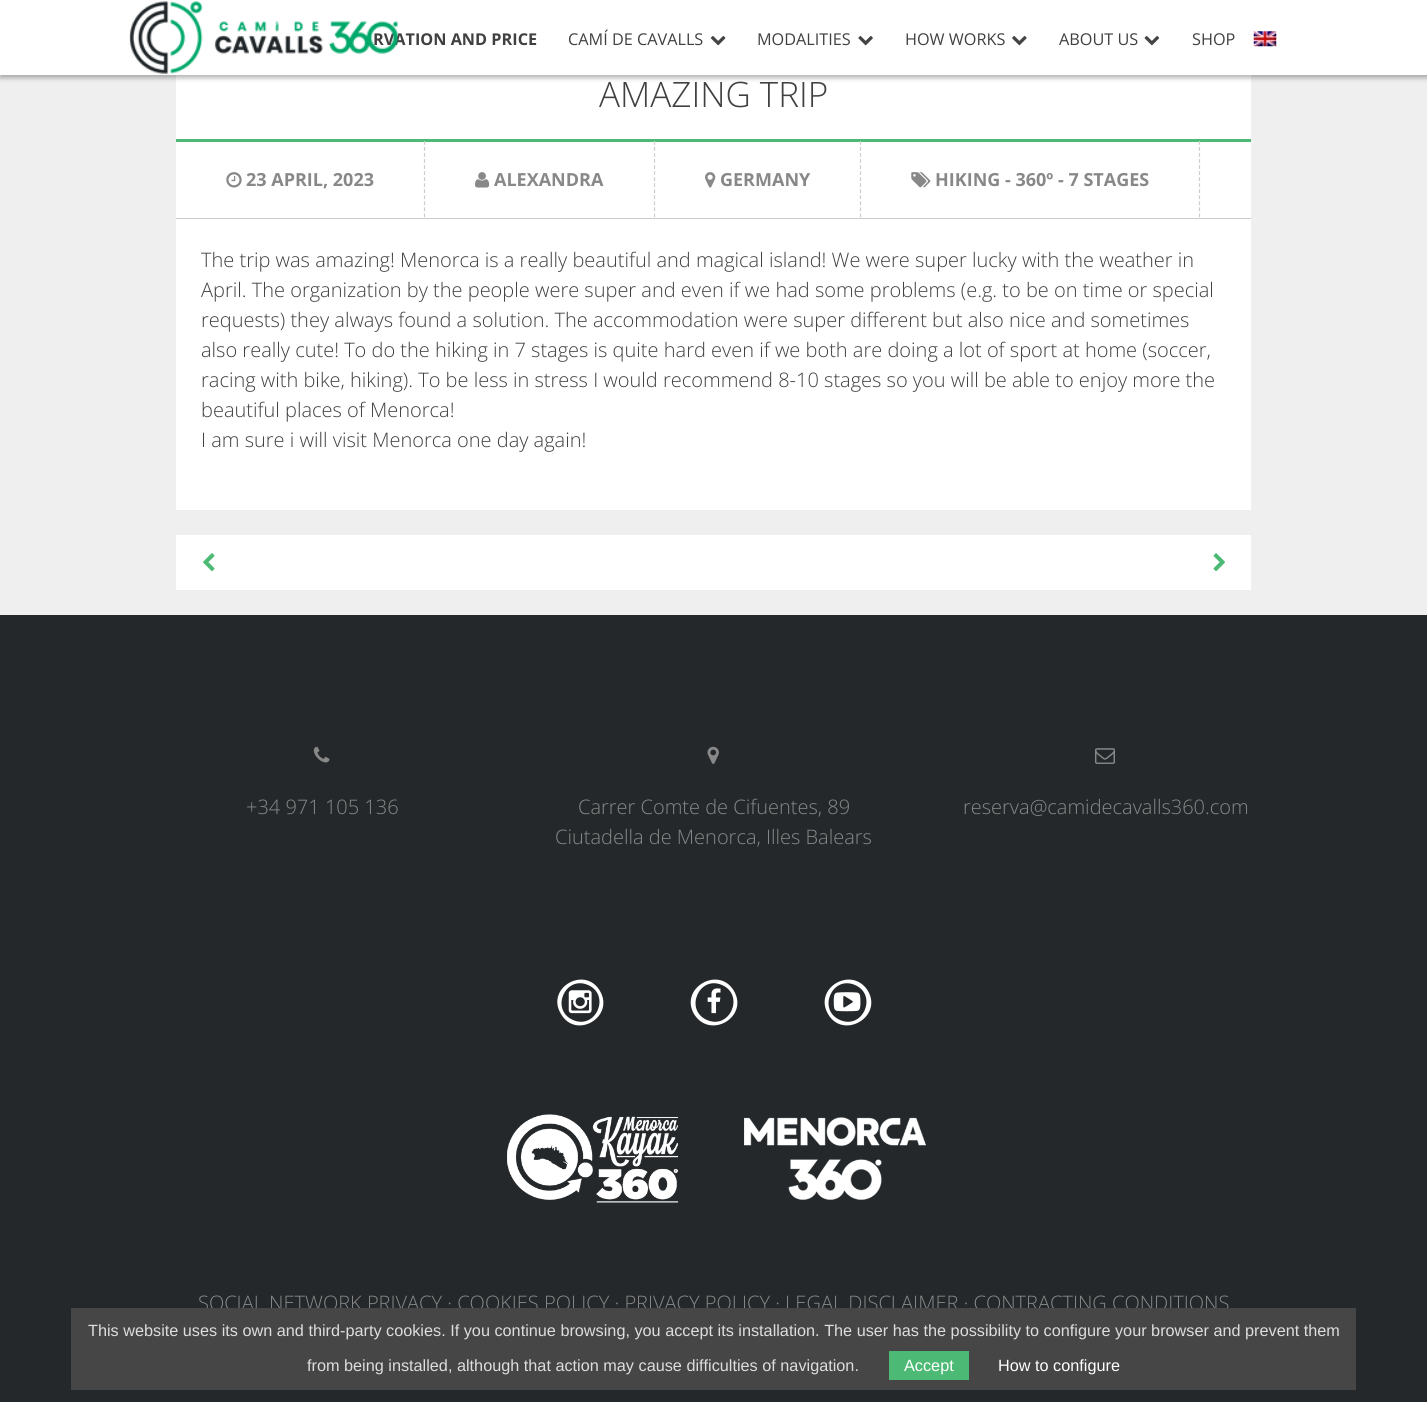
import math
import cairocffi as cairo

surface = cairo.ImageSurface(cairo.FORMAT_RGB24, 1427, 1402)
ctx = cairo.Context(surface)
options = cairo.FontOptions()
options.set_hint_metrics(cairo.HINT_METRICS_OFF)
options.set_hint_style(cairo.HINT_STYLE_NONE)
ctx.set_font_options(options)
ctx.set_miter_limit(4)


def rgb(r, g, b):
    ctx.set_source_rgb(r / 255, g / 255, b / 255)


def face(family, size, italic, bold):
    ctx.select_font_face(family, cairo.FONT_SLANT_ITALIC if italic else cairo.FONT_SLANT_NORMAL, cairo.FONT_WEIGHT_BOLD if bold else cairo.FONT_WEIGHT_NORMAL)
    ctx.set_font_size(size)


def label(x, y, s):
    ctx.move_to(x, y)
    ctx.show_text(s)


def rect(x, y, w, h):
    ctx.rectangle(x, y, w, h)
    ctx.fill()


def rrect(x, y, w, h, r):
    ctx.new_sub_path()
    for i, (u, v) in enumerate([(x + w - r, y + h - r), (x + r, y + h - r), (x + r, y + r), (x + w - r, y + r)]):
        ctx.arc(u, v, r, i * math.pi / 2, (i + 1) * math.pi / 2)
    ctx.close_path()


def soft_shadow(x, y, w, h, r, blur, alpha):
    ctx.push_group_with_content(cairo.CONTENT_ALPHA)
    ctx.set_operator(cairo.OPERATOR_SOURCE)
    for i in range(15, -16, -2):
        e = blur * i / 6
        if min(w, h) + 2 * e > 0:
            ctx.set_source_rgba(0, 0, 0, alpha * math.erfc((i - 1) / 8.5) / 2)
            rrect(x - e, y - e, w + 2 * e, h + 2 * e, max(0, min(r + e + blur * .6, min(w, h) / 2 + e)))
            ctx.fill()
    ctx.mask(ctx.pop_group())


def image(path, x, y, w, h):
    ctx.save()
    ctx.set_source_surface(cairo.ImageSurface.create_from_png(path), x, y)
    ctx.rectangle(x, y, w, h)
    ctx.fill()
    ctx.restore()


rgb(36, 40, 42)
ctx.paint()
rgb(239, 239, 239)
rect(0, 75, 1427, 540)
rgb(255, 255, 255)
rect(176, 75, 1075, 435)
rgb(0, 0, 0)
soft_shadow(0, 3, 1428, 75, 0, 2.5, 0.3)
rgb(255, 255, 255)
rect(0, 0, 1427, 75)
face('Open Sans', 16.25, 0, 1)
rgb(64, 64, 64)
label(373, 45, 'RVATION AND PRICE')
image('image0.png', 129, 1, 269, 73)
face('Open Sans', 16.25, 0, 0)
label(568, 45, 'CAMÍ DE CAVALLS')
image('image1.png', 710, 36, 16, 10)
label(757, 45, 'MODALITIES')
image('image2.png', 858, 36, 15, 10)
label(905, 45, 'HOW WORKS')
image('image3.png', 1012, 36, 15, 10)
label(1059, 45, 'ABOUT US')
image('image4.png', 1144, 36, 16, 10)
label(1192, 45, 'SHOP')
image('image5.png', 1253, 31, 24, 16)
face('Open Sans Light', 35, 0, 0)
label(599, 107, 'AMAZING TRIP')
rgb(76, 186, 116)
rect(176, 139, 1075, 3)
rgb(204, 204, 204)
rect(176, 218, 1075, 1)
ctx.new_path()
ctx.move_to(424.5, 141)
ctx.line_to(424.5, 217.5)
ctx.set_line_width(1.2)
ctx.set_dash([3.75, 2.29])
ctx.stroke()
image('image6.png', 226, 172, 16, 16)
face('Open Sans', 18, 0, 1)
rgb(136, 136, 136)
label(246, 186, '23 APRIL, 2023')
ctx.new_path()
ctx.move_to(654.5, 141)
ctx.line_to(654.5, 217.5)
rgb(204, 204, 204)
ctx.stroke()
image('image7.png', 475, 172, 15, 16)
rgb(136, 136, 136)
label(494, 186, 'ALEXANDRA')
ctx.new_path()
ctx.move_to(860.5, 141)
ctx.line_to(860.5, 217.5)
rgb(204, 204, 204)
ctx.stroke()
image('image8.png', 705, 172, 11, 16)
rgb(136, 136, 136)
label(720, 186, 'GERMANY')
ctx.new_path()
ctx.move_to(1199.5, 141)
ctx.line_to(1199.5, 217.5)
rgb(204, 204, 204)
ctx.stroke()
image('image9.png', 911, 172, 20, 16)
rgb(136, 136, 136)
label(935, 186, 'HIKING - 360º - 7 STAGES')
face('Open Sans Light', 20, 0, 0)
rgb(64, 64, 64)
label(201, 267, 'The trip was amazing! Menorca is a really beautiful and magical island! We were super lucky with the weather in')
label(201, 297, 'April. The organization by the people were super and even if we had some problems (e.g. to be on time or special')
label(201, 327, 'requests) they always found a solution. The accommodation were super different but also nice and sometimes')
label(201, 357, 'also really cute! To do the hiking in 7 stages is quite hard even if we both are doing a lot of sport at home (soccer,')
label(201, 387, 'racing with bike, hiking). To be less in stress I would recommend 8-10 stages so you will be able to enjoy more the')
label(201, 417, 'beautiful places of Menorca!')
label(201, 447, 'I am sure i will visit Menorca one day again!')
rgb(255, 255, 255)
rect(176, 535, 1075, 55)
image('image10.png', 203, 553, 12, 19)
image('image11.png', 1213, 553, 12, 19)
image('image12.png', 313, 746, 17, 17)
rgb(136, 136, 136)
label(246, 814, '+34 971 105 136')
image('image13.png', 707, 746, 12, 18)
label(578, 814, 'Carrer Comte de Cifuentes, 89')
label(555, 844, 'Ciutadella de Menorca, Illes Balears')
image('image14.png', 1095, 748, 20, 16)
label(963, 814, 'reserva@camidecavalls360.com')
rgb(255, 255, 255)
ctx.new_path()
ctx.move_to(588, 985)
ctx.curve_to(565, 975, 550, 1010, 573, 1020)
ctx.curve_to(596, 1030, 611, 995, 588, 985)
ctx.close_path()
ctx.move_to(600, 991)
ctx.curve_to(615, 1017, 576, 1040, 561, 1014)
ctx.curve_to(545, 988, 585, 965, 600, 991)
ctx.close_path()
ctx.fill()
image('image15.png', 568, 990, 24, 24)
ctx.new_path()
ctx.move_to(722, 985)
ctx.curve_to(699, 975, 684, 1010, 707, 1020)
ctx.curve_to(730, 1030, 745, 995, 722, 985)
ctx.close_path()
ctx.move_to(734, 991)
ctx.curve_to(749, 1017, 710, 1040, 694, 1014)
ctx.curve_to(679, 988, 719, 965, 734, 991)
ctx.close_path()
ctx.fill()
image('image16.png', 707, 988, 14, 26)
ctx.new_path()
ctx.move_to(855, 985)
ctx.curve_to(832, 975, 817, 1010, 840, 1020)
ctx.curve_to(863, 1030, 878, 995, 855, 985)
ctx.close_path()
ctx.move_to(868, 991)
ctx.curve_to(883, 1017, 843, 1040, 828, 1014)
ctx.curve_to(813, 988, 852, 965, 868, 991)
ctx.close_path()
ctx.fill()
image('image17.png', 833, 992, 28, 20)
image('image18.png', 507, 1114, 172, 89)
image('image19.png', 744, 1117, 182, 83)
rgb(136, 136, 136)
label(198, 1310, 'SOCIAL NETWORK PRIVACY · COOKIES POLICY · PRIVACY POLICY · LEGAL DISCLAIMER · CONTRACTING CONDITIONS')
rgb(70, 70, 70)
rect(71, 1308, 1285, 82)
face('Liberation Sans', 16.25, 0, 0)
rgb(221, 221, 221)
label(88, 1336, 'This website uses its own and third-party cookies. If you continue browsing, you accept its installation. The user has the possibility to configure your browser and prevent them')
label(307, 1371, 'from being installed, although that action may cause difficulties of navigation.')
rgb(76, 186, 116)
rect(889, 1351, 80, 29)
rgb(255, 255, 255)
label(904, 1371, 'Accept')
label(998, 1371, 'How to configure')
surface.write_to_png('render.png')
